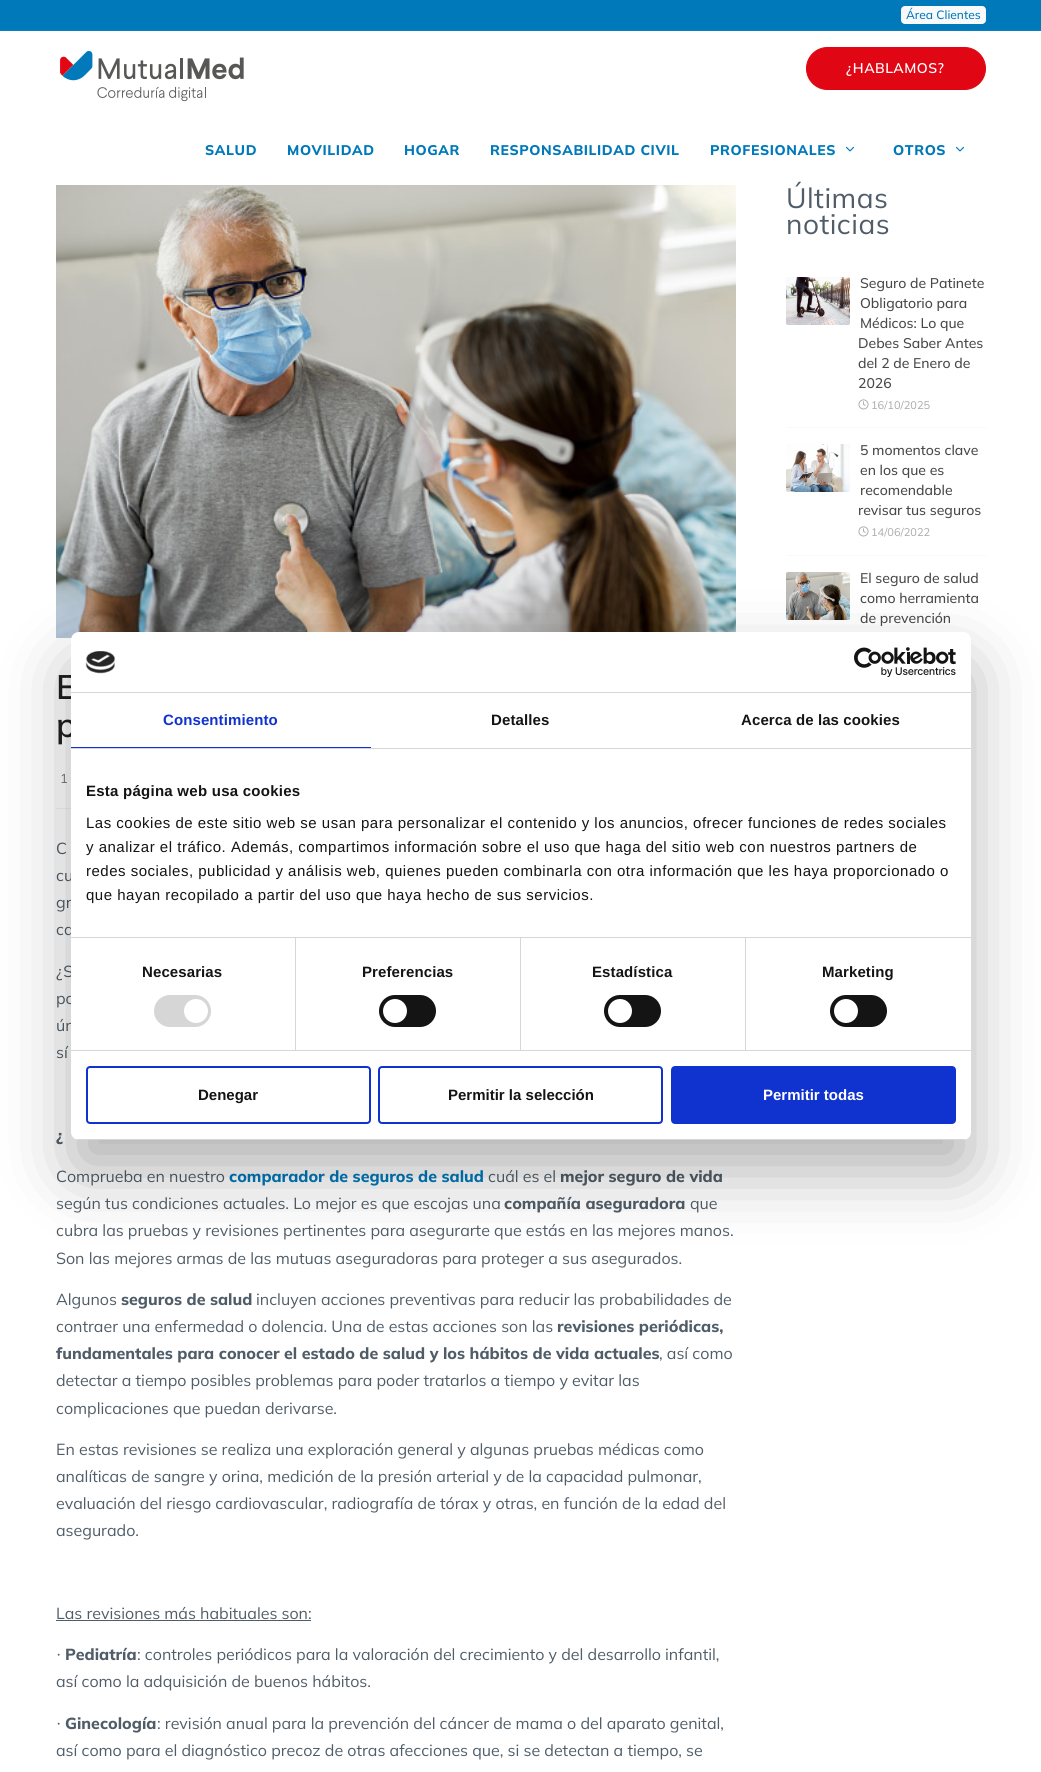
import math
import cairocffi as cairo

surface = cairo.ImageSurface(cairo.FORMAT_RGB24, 1041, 1772)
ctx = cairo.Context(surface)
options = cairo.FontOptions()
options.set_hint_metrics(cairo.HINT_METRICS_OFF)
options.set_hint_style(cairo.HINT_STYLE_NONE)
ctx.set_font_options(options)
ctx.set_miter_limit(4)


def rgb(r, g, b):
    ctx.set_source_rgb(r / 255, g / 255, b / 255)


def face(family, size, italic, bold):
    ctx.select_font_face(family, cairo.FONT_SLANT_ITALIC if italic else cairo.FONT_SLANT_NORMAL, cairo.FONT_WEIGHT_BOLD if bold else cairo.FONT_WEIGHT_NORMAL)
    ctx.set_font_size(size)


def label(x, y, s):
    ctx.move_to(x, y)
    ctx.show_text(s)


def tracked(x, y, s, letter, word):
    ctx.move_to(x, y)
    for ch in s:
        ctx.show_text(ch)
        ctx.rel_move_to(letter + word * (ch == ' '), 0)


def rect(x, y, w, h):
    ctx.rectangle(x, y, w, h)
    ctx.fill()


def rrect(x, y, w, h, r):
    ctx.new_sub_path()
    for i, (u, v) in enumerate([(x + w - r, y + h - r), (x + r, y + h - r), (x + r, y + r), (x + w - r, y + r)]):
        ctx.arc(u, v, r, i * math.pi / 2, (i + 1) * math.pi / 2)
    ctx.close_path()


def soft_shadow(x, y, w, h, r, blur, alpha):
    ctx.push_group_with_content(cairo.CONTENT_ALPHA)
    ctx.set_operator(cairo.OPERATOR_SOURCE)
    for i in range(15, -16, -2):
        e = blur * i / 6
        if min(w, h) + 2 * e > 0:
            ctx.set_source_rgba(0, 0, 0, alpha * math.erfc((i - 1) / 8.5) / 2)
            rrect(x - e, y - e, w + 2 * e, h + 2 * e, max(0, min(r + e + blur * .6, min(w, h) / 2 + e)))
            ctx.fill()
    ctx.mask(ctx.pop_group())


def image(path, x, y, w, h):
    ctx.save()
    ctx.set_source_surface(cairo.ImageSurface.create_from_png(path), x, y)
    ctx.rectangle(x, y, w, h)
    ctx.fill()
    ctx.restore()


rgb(255, 255, 255)
ctx.paint()
rgb(0, 121, 186)
rect(0, 0, 1041, 30)
rgb(12, 127, 188)
rect(0, 30, 1041, 1)
rgb(248, 249, 250)
rrect(901, 6, 85, 18, 4)
ctx.fill()
face('Mulish Medium', 12, 0, 0)
rgb(0, 121, 186)
label(906, 19, 'Área Clientes')
image('image0.png', 60, 50, 184, 52)
rgb(225, 6, 20)
rrect(806.5, 47.5, 179, 42, 21)
ctx.fill_preserve()
ctx.set_line_width(1)
ctx.stroke()
face('Mulish SemiBold', 14, 0, 0)
rgb(255, 255, 255)
tracked(846, 73, '¿HABLAMOS?', 0.5, 0)
face('Mulish ExtraBold', 14, 0, 0)
rgb(0, 121, 186)
tracked(205, 155, 'SALUD', 0.6, 0)
tracked(287, 155, 'MOVILIDAD', 0.6, 0)
tracked(404, 155, 'HOGAR', 0.6, 0)
tracked(490, 155, 'RESPONSABILIDAD CIVIL', 0.6, 0)
tracked(710, 155, 'PROFESIONALES', 0.6, 0)
image('image1.png', 846, 146, 8, 6)
tracked(893, 155, 'OTROS', 0.6, 0)
image('image1.png', 956, 146, 8, 6)
face('Mulish', 28, 0, 0)
rgb(80, 93, 104)
tracked(786, 208, 'Últimas', 0.5, 0)
tracked(786, 234, 'noticias', 0.5, 0)
rgb(247, 249, 251)
rect(786, 427, 200, 1)
image('image2.png', 786, 277, 64, 48)
face('Mulish Medium', 14, 0, 0)
rgb(72, 72, 72)
label(860, 288, 'Seguro de Patinete')
label(860, 308, 'Obligatorio para')
label(860, 328, 'Médicos: Lo que')
label(858, 348, 'Debes Saber Antes')
label(858, 368, 'del 2 de Enero de')
label(858, 388, '2026')
image('image3.png', 858, 399, 11, 11)
face('Mulish', 11, 0, 0)
rgb(170, 170, 170)
label(871, 409, '16/10/2025')
rgb(247, 249, 251)
rect(786, 555, 200, 1)
image('image4.png', 786, 444, 64, 48)
face('Mulish Medium', 14, 0, 0)
rgb(72, 72, 72)
label(860, 455, '5 momentos clave')
label(860, 475, 'en los que es')
label(860, 495, 'recomendable')
label(858, 515, 'revisar tus seguros')
image('image3.png', 858, 526, 11, 11)
face('Mulish', 11, 0, 0)
rgb(170, 170, 170)
label(871, 536, '14/06/2022')
image('image5.png', 786, 572, 64, 48)
face('Mulish Medium', 14, 0, 0)
rgb(72, 72, 72)
label(860, 583, 'El seguro de salud')
label(860, 603, 'como herramienta')
label(860, 623, 'de prevención')
image('image6.png', 56, 185, 680, 453)
face('Mulish SemiBold', 34, 0, 0)
rgb(31, 31, 31)
label(56, 699, 'E')
label(56, 737, 'p')
rgb(243, 243, 243)
rect(56, 808, 15, 1)
face('Mulish', 13, 0, 0)
rgb(119, 119, 119)
label(60, 783, '1')
face('Mulish', 16, 0, 0)
rgb(80, 93, 104)
label(56, 854, 'C')
label(56, 881, 'cu')
label(56, 908, 'gr')
label(56, 935, 'ca')
label(56, 977, '¿S')
label(56, 1004, 'po')
label(56, 1031, 'ún')
label(56, 1058, 'sí')
face('Mulish ExtraBold', 16, 0, 0)
label(56, 1141, '¿')
face('Mulish', 16, 0, 0)
label(56, 1182, 'Comprueba en nuestro')
face('Mulish ExtraBold', 16, 0, 0)
rgb(0, 121, 186)
label(229, 1182, 'comparador de seguros de salud')
face('Mulish', 16, 0, 0)
rgb(80, 93, 104)
label(488, 1182, 'cuál es el')
face('Mulish ExtraBold', 16, 0, 0)
label(560, 1182, 'mejor seguro de vida')
face('Mulish', 16, 0, 0)
label(56, 1209, 'según tus condiciones actuales. Lo mejor es que escojas una')
face('Mulish ExtraBold', 16, 0, 0)
label(504, 1209, 'compañía aseguradora')
face('Mulish', 16, 0, 0)
label(690, 1209, 'que')
label(56, 1236, 'cubra las pruebas y revisiones pertinentes para asegurarte que estás en las mejores manos.')
label(56, 1264, 'Son las mejores armas de las mutuas aseguradoras para proteger a sus asegurados.')
label(56, 1305, 'Algunos')
face('Mulish ExtraBold', 16, 0, 0)
label(121, 1305, 'seguros de salud')
face('Mulish', 16, 0, 0)
label(256, 1305, 'incluyen acciones preventivas para reducir las probabilidades de')
label(56, 1332, 'contraer una enfermedad o dolencia. Una de estas acciones son las')
face('Mulish ExtraBold', 16, 0, 0)
label(557, 1332, 'revisiones periódicas,')
label(56, 1359, 'fundamentales para conocer el estado de salud y los hábitos de vida actuales')
face('Mulish', 16, 0, 0)
label(659, 1359, ', así como')
label(56, 1386, 'detectar a tiempo posibles problemas para poder tratarlos a tiempo y evitar las')
label(56, 1414, 'complicaciones que puedan derivarse.')
label(56, 1455, 'En estas revisiones se realiza una exploración general y algunas pruebas médicas como')
label(56, 1482, 'analíticas de sangre y orina, medición de la presión arterial y de la capacidad pulmonar,')
label(56, 1509, 'evaluación del riesgo cardiovascular, radiografía de tórax y otras, en función de la edad del')
label(56, 1536, 'asegurado.')
label(56, 1619, 'Las revisiones más habituales son:')
rect(56, 1620, 255, 1)
face('Liberation Serif', 16, 0, 0)
label(56, 1660, '·')
face('Mulish ExtraBold', 16, 0, 0)
label(65, 1660, 'Pediatría')
face('Mulish', 16, 0, 0)
label(137, 1660, ': controles periódicos para la valoración del crecimiento y del desarrollo infantil,')
label(56, 1687, 'así como la adquisición de buenos hábitos.')
face('Liberation Serif', 16, 0, 0)
label(56, 1729, '·')
face('Mulish ExtraBold', 16, 0, 0)
label(65, 1729, 'Ginecología')
face('Mulish', 16, 0, 0)
label(157, 1729, ': revisión anual para la prevención del cáncer de mama o del aparato genital,')
label(56, 1756, 'así como para el diagnóstico precoz de otras afecciones que, si se detectan a tiempo, se')
rgb(0, 0, 0)
soft_shadow(71, 664, 900, 508, 8, 34, 0.3)
rgb(255, 255, 255)
rrect(71, 632, 900, 508, 8)
ctx.fill()
rgb(214, 214, 214)
rect(71, 692, 900, 1)
image('image7.png', 85, 651, 30, 23)
image('image8.png', 854, 647, 102, 30)
rect(71, 748, 900, 1)
rgb(16, 50, 207)
rect(71, 747, 300, 1)
face('Liberation Sans', 15, 0, 1)
tracked(163, 725, 'Consentimiento', 0.1, 0)
rgb(20, 20, 20)
tracked(491, 725, 'Detalles', 0.1, 0)
tracked(741, 725, 'Acerca de las cookies', 0.1, 0)
rgb(214, 214, 214)
rect(71, 937, 900, 1)
rgb(20, 20, 20)
tracked(86, 796, 'Esta página web usa cookies', 0.25, 0)
face('Liberation Sans', 15, 0, 0)
tracked(86, 828, 'Las cookies de este sitio web se usan para personalizar el contenido y los anuncios, ofrecer funciones de redes sociales', 0.5, 0)
tracked(86, 852, 'y analizar el tráfico. Además, compartimos información sobre el uso que haga del sitio web con nuestros partners de', 0.5, 0)
tracked(86, 876, 'redes sociales, publicidad y análisis web, quienes pueden combinarla con otra información que les haya proporcionado o', 0.5, 0)
tracked(86, 900, 'que hayan recopilado a partir del uso que haya hecho de sus servicios.', 0.5, 0)
rgb(214, 214, 214)
rect(71, 1050, 900, 1)
rect(295, 938, 1, 112)
face('Liberation Sans', 15, 0, 1)
rgb(20, 20, 20)
tracked(142, 977, 'Necesarias', 0.1, 0)
rgb(214, 214, 214)
rrect(154, 995, 57, 32, 16)
ctx.fill()
rgb(255, 255, 255)
ctx.arc(196, 1011, 12, 0, 2 * math.pi)
ctx.fill()
rgb(214, 214, 214)
rect(520, 938, 1, 112)
rgb(20, 20, 20)
tracked(362, 977, 'Preferencias', 0.1, 0)
rrect(379, 995, 57, 32, 16)
ctx.fill()
rgb(255, 255, 255)
ctx.arc(395, 1011, 12, 0, 2 * math.pi)
ctx.fill()
rgb(214, 214, 214)
rect(745, 938, 1, 112)
rgb(20, 20, 20)
tracked(592, 977, 'Estadística', 0.1, 0)
rrect(604, 995, 57, 32, 16)
ctx.fill()
rgb(255, 255, 255)
ctx.arc(620, 1011, 12, 0, 2 * math.pi)
ctx.fill()
rgb(20, 20, 20)
tracked(822, 977, 'Marketing', 0.1, 0)
rrect(830, 995, 57, 32, 16)
ctx.fill()
rgb(255, 255, 255)
ctx.arc(846, 1011, 12, 0, 2 * math.pi)
ctx.fill()
ctx.save()
rrect(71, 632, 900, 508, 8)
ctx.clip()
rgb(214, 214, 214)
rect(71, 1139, 900, 1)
ctx.restore()
rrect(87, 1067, 283, 56, 3)
rgb(16, 50, 207)
ctx.set_line_width(2)
ctx.stroke()
rgb(20, 20, 20)
label(198, 1100, 'Denegar')
rrect(379, 1067, 283, 56, 3)
rgb(16, 50, 207)
ctx.stroke()
rgb(20, 20, 20)
label(448, 1100, 'Permitir la selección')
rgb(16, 50, 207)
rrect(672, 1067, 283, 56, 3)
ctx.fill_preserve()
ctx.stroke()
rgb(255, 255, 255)
label(763, 1100, 'Permitir todas')
surface.write_to_png('render.png')
